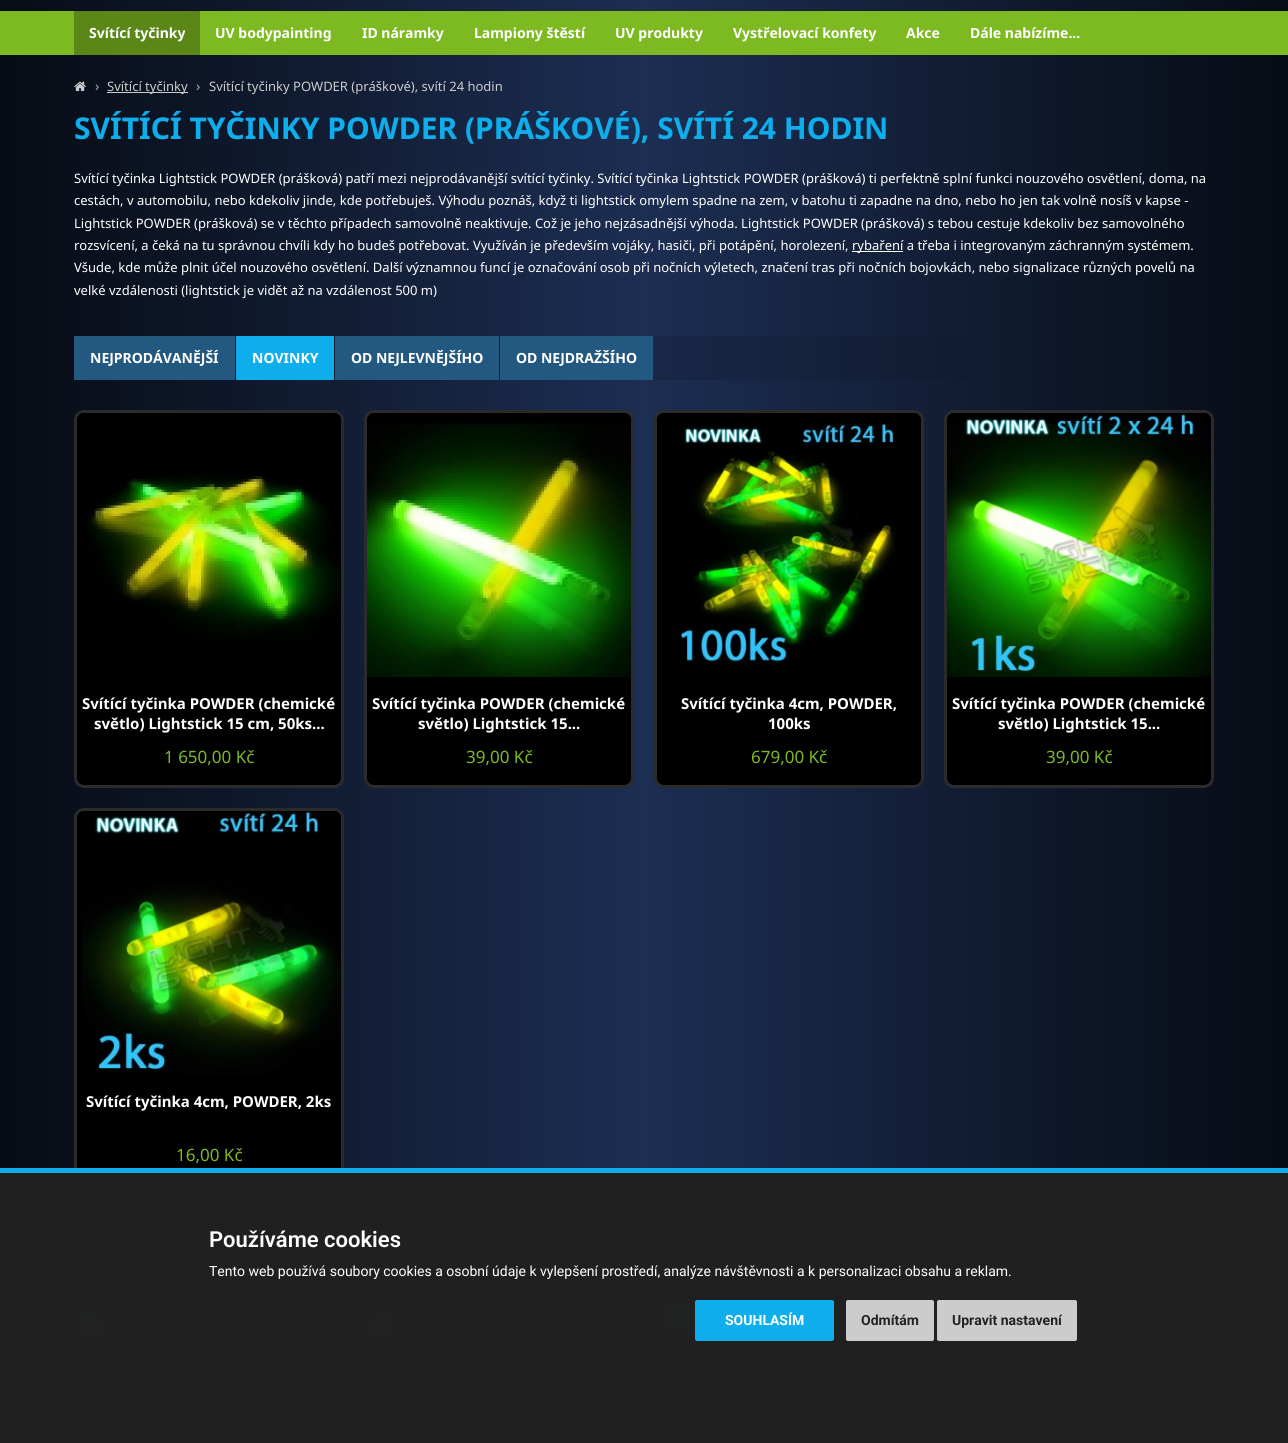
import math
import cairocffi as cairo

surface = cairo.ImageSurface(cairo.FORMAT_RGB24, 1288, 1443)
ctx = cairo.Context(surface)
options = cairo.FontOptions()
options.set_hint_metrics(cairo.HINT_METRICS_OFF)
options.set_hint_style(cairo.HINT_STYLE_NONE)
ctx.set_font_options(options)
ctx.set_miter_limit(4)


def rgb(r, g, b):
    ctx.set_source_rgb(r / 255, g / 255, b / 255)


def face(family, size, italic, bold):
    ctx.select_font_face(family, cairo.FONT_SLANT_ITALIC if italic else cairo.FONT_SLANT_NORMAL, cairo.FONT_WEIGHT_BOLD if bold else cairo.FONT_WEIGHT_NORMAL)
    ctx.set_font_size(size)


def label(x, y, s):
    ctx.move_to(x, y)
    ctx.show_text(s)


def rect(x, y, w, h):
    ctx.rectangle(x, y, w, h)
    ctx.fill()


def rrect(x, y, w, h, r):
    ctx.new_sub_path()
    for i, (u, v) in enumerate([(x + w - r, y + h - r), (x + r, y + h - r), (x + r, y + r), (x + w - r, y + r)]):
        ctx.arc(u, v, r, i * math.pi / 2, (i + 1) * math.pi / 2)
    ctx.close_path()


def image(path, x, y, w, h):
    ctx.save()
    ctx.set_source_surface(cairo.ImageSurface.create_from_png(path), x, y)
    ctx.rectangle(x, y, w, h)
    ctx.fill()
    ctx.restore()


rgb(0, 0, 0)
ctx.paint()
gradient = cairo.LinearGradient(0, 607, 1288, 607)
gradient.add_color_stop_rgba(0, 0.027, 0.043, 0.078, 1)
gradient.add_color_stop_rgba(0.5, 0.11, 0.18, 0.322, 1)
gradient.add_color_stop_rgba(1, 0.027, 0.043, 0.078, 1)
ctx.set_source(gradient)
rect(0, 55, 1288, 1192)
gradient = cairo.LinearGradient(-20, -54, 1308, -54)
gradient.add_color_stop_rgba(0, 0.027, 0.043, 0.078, 1)
gradient.add_color_stop_rgba(0.5, 0.11, 0.18, 0.322, 1)
gradient.add_color_stop_rgba(1, 0.027, 0.043, 0.078, 1)
ctx.set_source(gradient)
rect(0, 0, 1288, 11)
rgb(125, 186, 33)
rect(0, 11, 1288, 44)
rgb(91, 135, 24)
rect(74, 11, 126, 44)
face('Noto Sans', 14, 0, 1)
rgb(255, 255, 255)
label(89, 38, 'Svítící tyčinky')
label(215, 38, 'UV bodypainting')
label(362, 38, 'ID náramky')
label(474, 38, 'Lampiony štěstí')
label(615, 38, 'UV produkty')
label(733, 38, 'Vystřelovací konfety')
label(906, 38, 'Akce')
label(970, 38, 'Dále nabízíme...')
image('image0.png', 74, 81, 12, 10)
face('Noto Sans', 14, 0, 0)
rgb(170, 170, 170)
label(95, 91, '›')
rgb(204, 204, 204)
rect(107, 92, 81, 1)
face('Noto Sans', 13, 0, 0)
label(107, 91, 'Svítící tyčinky')
face('Noto Sans', 14, 0, 0)
rgb(170, 170, 170)
label(196, 91, '›')
face('Noto Sans', 13, 0, 0)
rgb(204, 204, 204)
label(209, 91, 'Svítící tyčinky POWDER (práškové), svítí 24 hodin')
face('Noto Sans', 30, 0, 1)
rgb(14, 174, 236)
label(74, 139, 'SVÍTÍCÍ TYČINKY POWDER (PRÁŠKOVÉ), SVÍTÍ 24 HODIN')
face('Noto Sans', 13, 0, 0)
rgb(255, 255, 255)
label(74, 183, 'Svítící tyčinka Lightstick POWDER (prášková) patří mezi nejprodávanější svítící tyčinky. Svítící tyčinka Lightstick POWDER (prášková) ti perfektně splní funkci nouzového osvětlení, doma, na')
label(74, 205, 'cestách, v automobilu, nebo kdekoliv jinde, kde potřebuješ. Výhodu poznáš, když ti lightstick omylem spadne na zem, v batohu ti zapadne na dno, nebo ho jen tak volně nosíš v kapse -')
label(74, 228, 'Lightstick POWDER (prášková) se v těchto případech samovolně neaktivuje. Což je jeho nejzásadnější výhoda. Lightstick POWDER (prášková) s tebou cestuje kdekoliv bez samovolného')
label(74, 250, 'rozsvícení, a čeká na tu správnou chvíli kdy ho budeš potřebovat. Využíván je především vojáky, hasiči, při potápění, horolezení,')
rect(852, 251, 51, 1)
label(852, 250, 'rybaření a třeba i integrovaným záchranným systémem.')
label(74, 272, 'Všude, kde může plnit účel nouzového osvětlení. Další významnou funcí je označování osob při nočních výletech, značení tras při nočních bojovkách, nebo signalizace různých povelů na')
label(74, 295, 'velké vzdálenosti (lightstick je vidět až na vzdálenost 500 m)')
gradient = cairo.LinearGradient(74, 358, 1214, 358)
gradient.add_color_stop_rgba(0, 0, 0, 0, 0.25)
gradient.add_color_stop_rgba(1, 0, 0, 0, 0)
ctx.set_source(gradient)
rect(235, 336, 738, 44)
rgb(35, 88, 128)
rect(74, 336, 161, 44)
face('Noto Sans', 14, 0, 1)
rgb(255, 255, 255)
label(90, 363, 'NEJPRODÁVANĚJŠÍ')
rgb(14, 173, 235)
rect(236, 336, 98, 44)
rgb(255, 255, 255)
label(252, 363, 'NOVINKY')
rgb(35, 88, 128)
rect(335, 336, 164, 44)
rgb(255, 255, 255)
label(351, 363, 'OD NEJLEVNĚJŠÍHO')
rgb(35, 88, 128)
rect(500, 336, 153, 44)
rgb(255, 255, 255)
label(516, 363, 'OD NEJDRAŽŠÍHO')
rgb(0, 0, 0)
rrect(75.5, 411.5, 267, 375, 8.5)
ctx.fill_preserve()
rgb(43, 43, 43)
ctx.set_line_width(3)
ctx.stroke()
image('image1.png', 77, 413, 264, 227)
face('Noto Sans', 15, 0, 1)
rgb(255, 255, 255)
label(82, 709, 'Svítící tyčinka POWDER (chemické')
label(94, 729, 'světlo) Lightstick 15 cm, 50ks...')
face('Noto Sans', 17, 0, 0)
rgb(125, 186, 33)
label(164, 763, '1 650,00 Kč')
rgb(0, 0, 0)
rrect(365.5, 411.5, 267, 375, 8.5)
ctx.fill_preserve()
rgb(43, 43, 43)
ctx.stroke()
image('image2.png', 367, 413, 264, 264)
face('Noto Sans', 15, 0, 1)
rgb(255, 255, 255)
label(372, 709, 'Svítící tyčinka POWDER (chemické')
label(418, 729, 'světlo) Lightstick 15...')
face('Noto Sans', 17, 0, 0)
rgb(125, 186, 33)
label(466, 763, '39,00 Kč')
rgb(0, 0, 0)
rrect(655.5, 411.5, 267, 375, 8.5)
ctx.fill_preserve()
rgb(43, 43, 43)
ctx.stroke()
image('image3.png', 657, 413, 264, 254)
face('Noto Sans', 15, 0, 1)
rgb(255, 255, 255)
label(681, 709, 'Svítící tyčinka 4cm, POWDER,')
label(768, 729, '100ks')
face('Noto Sans', 17, 0, 0)
rgb(125, 186, 33)
label(751, 763, '679,00 Kč')
rgb(0, 0, 0)
rrect(945.5, 411.5, 267, 375, 8.5)
ctx.fill_preserve()
rgb(43, 43, 43)
ctx.stroke()
image('image4.png', 947, 413, 264, 264)
face('Noto Sans', 15, 0, 1)
rgb(255, 255, 255)
label(952, 709, 'Svítící tyčinka POWDER (chemické')
label(998, 729, 'světlo) Lightstick 15...')
face('Noto Sans', 17, 0, 0)
rgb(125, 186, 33)
label(1046, 763, '39,00 Kč')
rgb(0, 0, 0)
rrect(75.5, 809.5, 267, 376, 8.5)
ctx.fill_preserve()
rgb(43, 43, 43)
ctx.stroke()
image('image5.png', 77, 811, 264, 264)
face('Noto Sans', 15, 0, 1)
rgb(255, 255, 255)
label(86, 1107, 'Svítící tyčinka 4cm, POWDER, 2ks')
face('Noto Sans', 17, 0, 0)
rgb(125, 186, 33)
label(176, 1161, '16,00 Kč')
rgb(21, 53, 77)
rect(0, 1247, 1288, 123)
rgb(14, 174, 236)
ctx.new_path()
ctx.arc(89, 1325, 15, 0, 2 * math.pi)
ctx.fill()
image('image6.png', 82, 1317, 15, 15)
ctx.arc(381, 1326, 15, 0, 2 * math.pi)
ctx.fill()
image('image7.png', 374, 1321, 14, 11)
rgb(255, 255, 255)
rect(406, 1332, 124, 1)
rgb(42, 105, 153)
rrect(659.5, 1299.5, 122, 33, 3.5)
ctx.fill_preserve()
rgb(14, 174, 236)
ctx.set_line_width(1)
ctx.stroke()
ctx.set_source_rgba(0.129, 0.129, 0.129, 0.99)
rect(0, 1173, 1288, 270)
rgb(14, 174, 236)
rect(0, 1168, 1288, 5)
face('Roboto SemiBold', 22, 0, 0)
rgb(255, 255, 255)
label(209, 1247, 'Používáme cookies')
face('Roboto', 14, 0, 0)
label(209, 1276, 'Tento web používá soubory cookies a osobní údaje k vylepšení prostředí, analýze návštěvnosti a k personalizaci obsahu a reklam.')
rgb(14, 174, 236)
rrect(695, 1300, 139, 41, 2)
ctx.fill()
face('Roboto', 14, 0, 1)
rgb(255, 255, 255)
label(725, 1325, 'SOUHLASÍM')
rgb(204, 204, 204)
rrect(846, 1300, 88, 41, 2)
ctx.fill()
rgb(34, 34, 34)
label(861, 1325, 'Odmítám')
rgb(204, 204, 204)
rrect(937, 1300, 140, 41, 2)
ctx.fill()
rgb(34, 34, 34)
label(952, 1325, 'Upravit nastavení')
surface.write_to_png('render.png')
